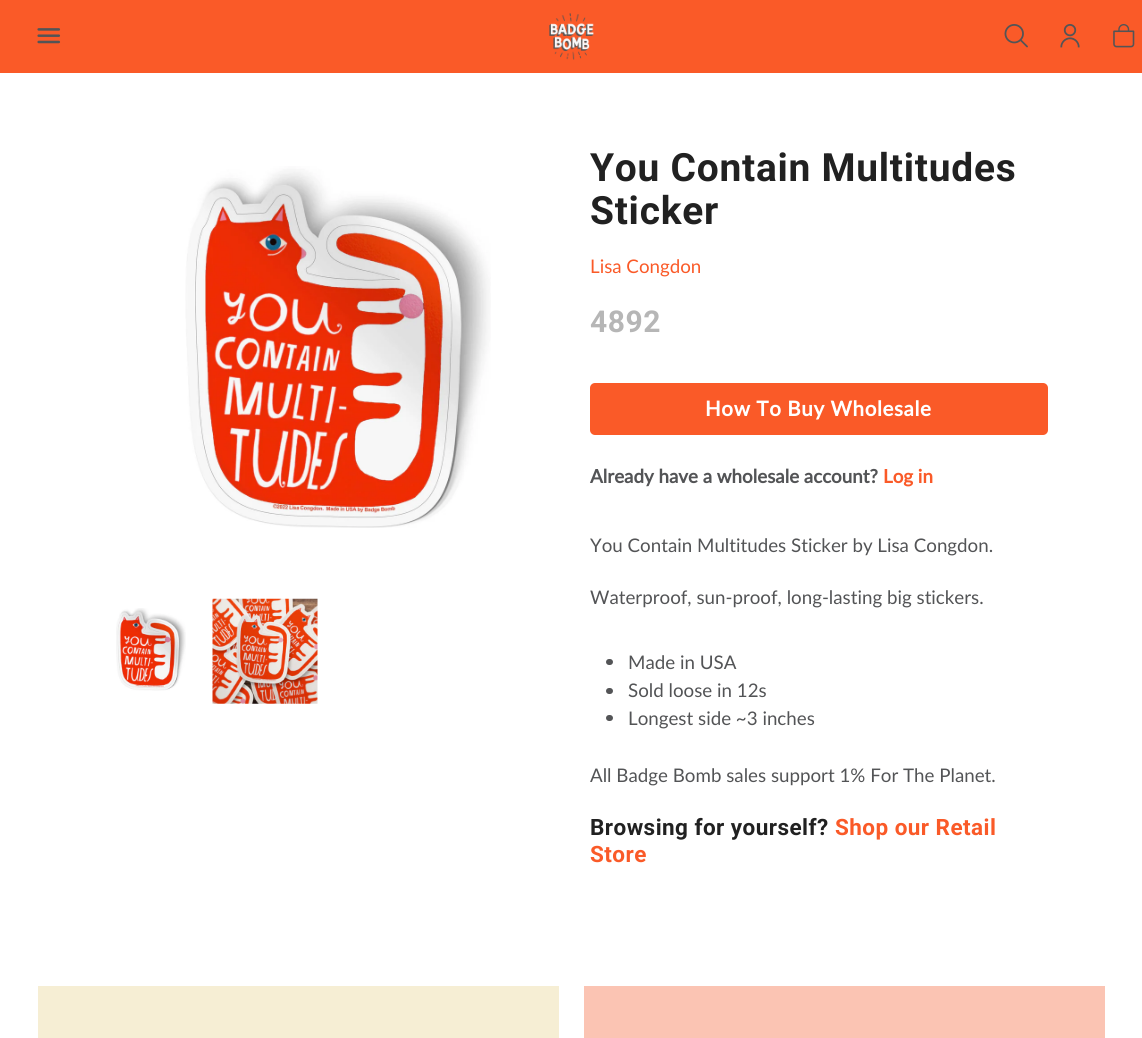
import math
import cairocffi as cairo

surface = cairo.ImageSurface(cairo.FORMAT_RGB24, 1142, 1038)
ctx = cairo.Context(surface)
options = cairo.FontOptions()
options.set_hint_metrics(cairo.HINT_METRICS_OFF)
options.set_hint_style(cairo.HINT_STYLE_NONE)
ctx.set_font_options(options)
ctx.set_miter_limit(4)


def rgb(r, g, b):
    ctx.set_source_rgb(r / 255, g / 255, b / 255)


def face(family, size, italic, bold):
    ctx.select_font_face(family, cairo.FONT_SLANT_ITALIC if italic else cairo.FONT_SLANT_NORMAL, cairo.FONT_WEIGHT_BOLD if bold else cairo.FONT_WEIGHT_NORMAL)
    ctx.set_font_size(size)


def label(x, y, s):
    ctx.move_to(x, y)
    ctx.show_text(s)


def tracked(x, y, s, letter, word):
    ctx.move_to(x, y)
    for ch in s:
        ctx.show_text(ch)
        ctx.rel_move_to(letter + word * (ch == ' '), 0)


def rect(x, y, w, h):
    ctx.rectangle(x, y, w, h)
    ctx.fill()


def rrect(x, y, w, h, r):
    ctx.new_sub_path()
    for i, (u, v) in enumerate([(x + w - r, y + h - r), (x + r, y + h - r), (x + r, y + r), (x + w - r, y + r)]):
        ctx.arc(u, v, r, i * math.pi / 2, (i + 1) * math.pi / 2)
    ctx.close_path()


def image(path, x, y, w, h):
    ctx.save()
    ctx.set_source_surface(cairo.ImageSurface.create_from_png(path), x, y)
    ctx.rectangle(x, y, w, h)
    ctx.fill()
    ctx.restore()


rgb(255, 255, 255)
ctx.paint()
rgb(250, 90, 40)
rect(0, 0, 1142, 73)
image('image0.png', 37, 28, 24, 16)
image('image1.png', 549, 13, 45, 47)
image('image2.png', 1004, 24, 24, 24)
image('image3.png', 1060, 24, 20, 24)
image('image4.png', 1113, 24, 22, 24)
image('image5.png', 185, 166, 306, 362)
image('image6.png', 116, 608, 70, 83)
image('image7.png', 212, 598, 106, 106)
face('Roboto', 38.9, 0, 1)
rgb(33, 33, 33)
tracked(590, 181, 'You Contain Multitudes', 0.75, 0)
tracked(590, 224, 'Sticker', 0.75, 0)
face('Lato', 18.75, 0, 0)
rgb(250, 90, 40)
label(590, 273, 'Lisa Congdon')
face('Roboto', 30, 0, 1)
rgb(182, 182, 182)
tracked(590, 332, '4892', 0.5, 0)
rgb(250, 90, 40)
rrect(590, 383, 458, 52, 5)
ctx.fill()
face('Lato', 20.6, 0, 1)
rgb(255, 255, 255)
tracked(705, 416, 'How To Buy Wholesale', 0.6, 0)
face('Lato', 18.75, 0, 1)
rgb(83, 84, 86)
label(590, 483, 'Already have a wholesale account?')
rgb(250, 90, 40)
label(883, 483, 'Log in')
face('Lato', 18.75, 0, 0)
rgb(83, 84, 86)
label(590, 552, 'You Contain Multitudes Sticker by Lisa Congdon.')
label(590, 604, 'Waterproof, sun-proof, long-lasting big stickers.')
rrect(606, 659, 7, 6, 3)
ctx.fill()
label(628, 669, 'Made in USA')
rrect(606, 688, 7, 6, 3)
ctx.fill()
label(628, 697, 'Sold loose in 12s')
rrect(606, 715, 7, 6, 3)
ctx.fill()
label(628, 725, 'Longest side ~3 inches')
label(590, 782, 'All Badge Bomb sales support 1% For The Planet.')
face('Roboto', 22.5, 0, 1)
rgb(33, 33, 33)
tracked(590, 835, 'Browsing for yourself?', 0.45, 0)
rgb(250, 90, 40)
tracked(835, 835, 'Shop our Retail', 0.45, 0)
tracked(590, 862, 'Store', 0.45, 0)
rgb(246, 238, 212)
rect(38, 986, 521, 52)
rgb(251, 196, 179)
rect(584, 986, 521, 52)
surface.write_to_png('render.png')
